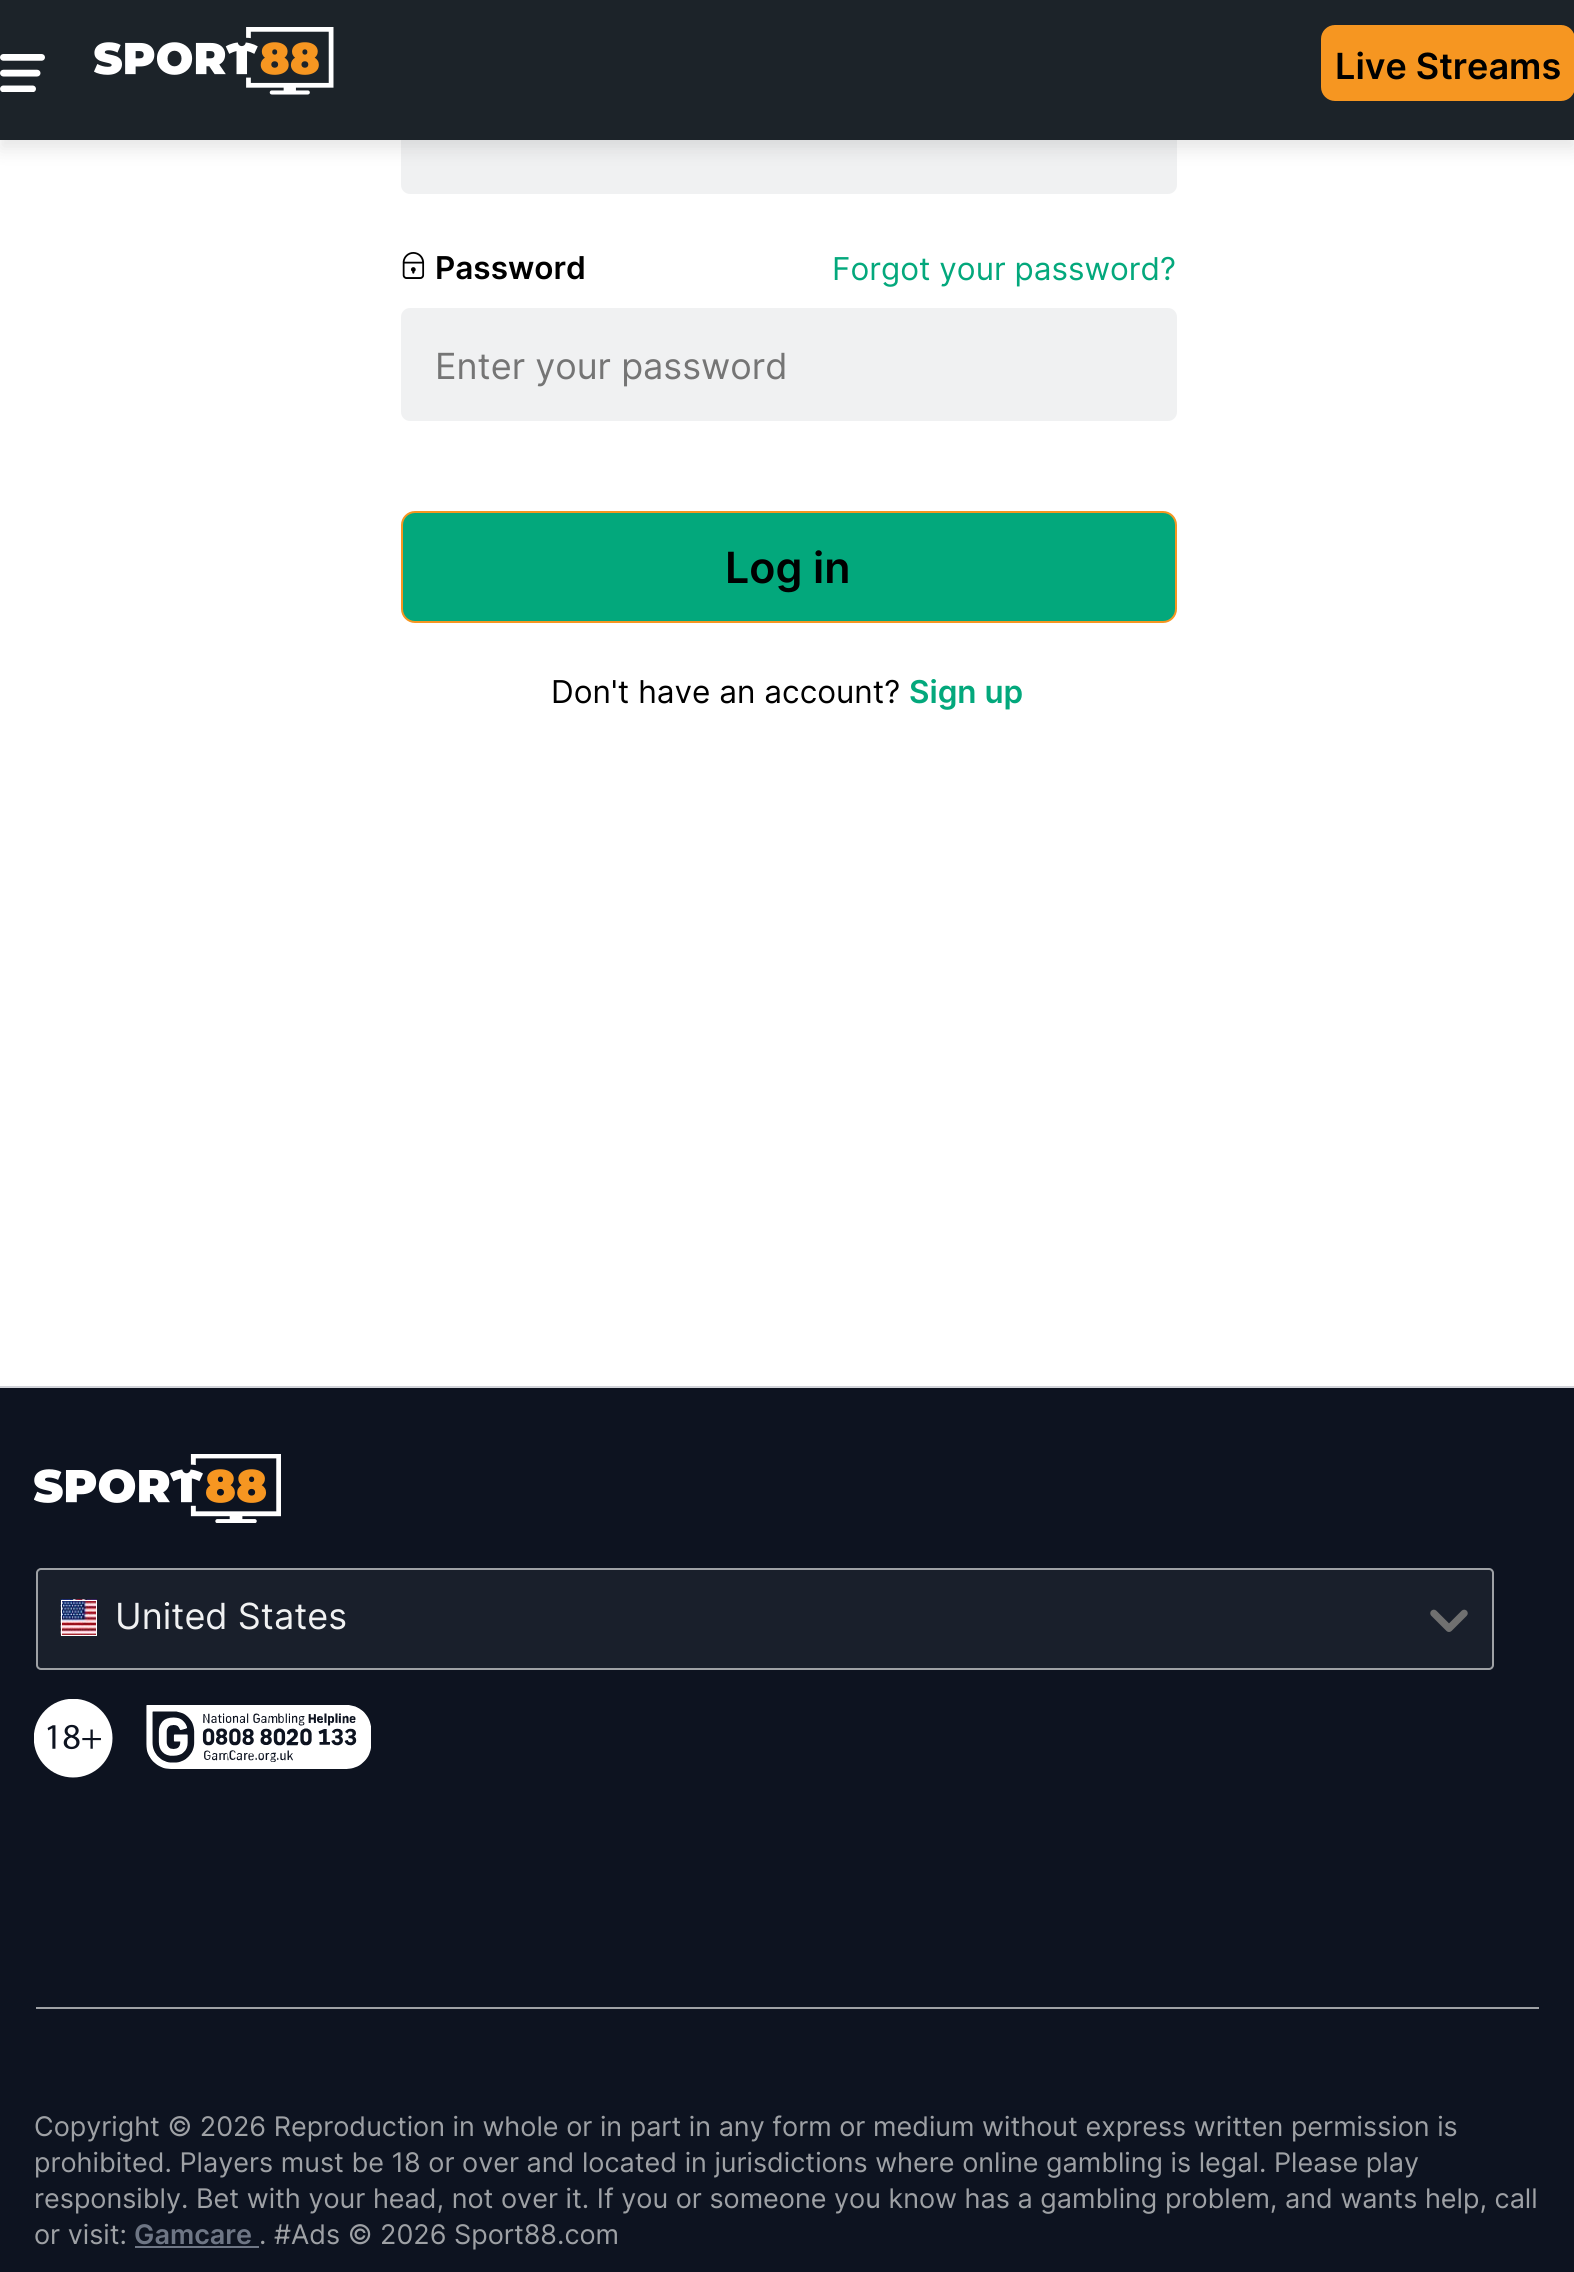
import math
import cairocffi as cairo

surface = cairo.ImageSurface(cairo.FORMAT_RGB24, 1574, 2272)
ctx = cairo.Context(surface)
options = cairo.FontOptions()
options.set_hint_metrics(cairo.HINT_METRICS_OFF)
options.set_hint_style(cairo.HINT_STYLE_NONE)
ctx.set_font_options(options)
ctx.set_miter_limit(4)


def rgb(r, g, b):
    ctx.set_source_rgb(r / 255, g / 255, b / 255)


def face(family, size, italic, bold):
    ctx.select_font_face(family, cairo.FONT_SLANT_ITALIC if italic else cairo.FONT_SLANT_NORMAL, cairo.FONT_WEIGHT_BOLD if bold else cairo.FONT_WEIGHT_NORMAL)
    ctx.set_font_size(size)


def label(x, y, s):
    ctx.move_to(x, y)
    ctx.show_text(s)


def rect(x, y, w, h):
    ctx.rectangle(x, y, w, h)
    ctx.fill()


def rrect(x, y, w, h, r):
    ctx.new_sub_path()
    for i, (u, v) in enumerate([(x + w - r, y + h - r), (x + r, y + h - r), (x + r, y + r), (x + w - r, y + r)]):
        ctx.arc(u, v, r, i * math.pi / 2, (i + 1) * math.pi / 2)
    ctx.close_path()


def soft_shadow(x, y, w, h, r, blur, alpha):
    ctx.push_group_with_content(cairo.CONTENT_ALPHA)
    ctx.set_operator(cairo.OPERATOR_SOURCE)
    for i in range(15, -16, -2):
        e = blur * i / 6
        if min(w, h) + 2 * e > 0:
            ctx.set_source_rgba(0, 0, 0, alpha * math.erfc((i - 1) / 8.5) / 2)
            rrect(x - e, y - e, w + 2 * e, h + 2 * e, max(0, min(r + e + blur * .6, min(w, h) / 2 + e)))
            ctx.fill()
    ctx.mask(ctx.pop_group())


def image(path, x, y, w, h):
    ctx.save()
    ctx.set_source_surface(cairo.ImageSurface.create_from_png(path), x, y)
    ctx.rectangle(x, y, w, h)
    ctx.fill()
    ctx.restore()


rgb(255, 255, 255)
ctx.paint()
rgb(240, 241, 242)
rrect(402, 82, 774, 111, 8)
ctx.fill_preserve()
ctx.stroke()
rgb(0, 0, 0)
soft_shadow(0, 9, 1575, 140, 0, 9, 0.1)
rgb(28, 35, 41)
rect(0, 0, 1574, 140)
image('image0.png', 0, 54, 45, 38)
image('image1.png', 94, 27, 240, 68)
rgb(246, 150, 33)
rrect(1322, 26, 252, 74, 13)
ctx.fill_preserve()
ctx.stroke()
face('Inter SemiBold', 36, 0, 0)
rgb(0, 0, 0)
label(1335, 79, 'Live Streams')
image('image2.png', 402, 252, 23, 27)
face('Inter SemiBold', 31.5, 0, 0)
label(435, 279, 'Password')
face('Inter', 31.5, 0, 0)
rgb(3, 168, 124)
label(832, 280, 'Forgot your password?')
rgb(240, 241, 242)
rrect(402, 309, 774, 111, 8)
ctx.fill_preserve()
ctx.stroke()
face('Inter', 36, 0, 0)
rgb(117, 117, 117)
label(435, 379, 'Enter your password')
rgb(3, 168, 124)
rrect(402, 512, 774, 110, 13)
ctx.fill_preserve()
rgb(246, 150, 33)
ctx.stroke()
face('Inter SemiBold', 43, 0, 0)
rgb(0, 0, 0)
label(725, 583, 'Log in')
face('Inter', 31.5, 0, 0)
label(551, 703, 'Don\'t have an account?')
face('Inter SemiBold', 31.5, 0, 0)
rgb(3, 168, 124)
label(909, 703, 'Sign up')
rgb(13, 19, 32)
rect(0, 1388, 1574, 884)
rgb(209, 211, 217)
rect(0, 1386, 1574, 2)
image('image3.png', 34, 1454, 247, 69)
image('image4.png', 34, 1699, 79, 79)
image('image5.png', 146, 1705, 225, 64)
rgb(25, 31, 43)
rrect(37, 1569, 1456, 100, 4)
ctx.fill_preserve()
rgb(158, 161, 165)
ctx.stroke()
image('image6.png', 60, 1599, 37, 37)
ctx.rectangle(61.5, 1600.5, 35, 35)
rgb(255, 255, 255)
ctx.set_line_width(1)
ctx.stroke()
face('Inter', 36, 0, 0)
rgb(240, 241, 242)
label(115, 1629, 'United States')
image('image7.png', 1430, 1609, 38, 23)
rgb(158, 161, 165)
rect(36, 2007, 1503, 2)
face('Inter', 27, 0, 0)
label(34, 2136, 'Copyright © 2026 Reproduction in whole or in part in any form or medium without express written permission is')
label(34, 2172, 'prohibited. Players must be 18 or over and located in jurisdictions where online gambling is legal. Please play')
label(34, 2208, 'responsibly. Bet with your head, not over it. If you or someone you know has a gambling problem, and wants help, call')
label(34, 2244, 'or visit:')
face('Inter SemiBold', 27, 0, 0)
rgb(110, 118, 133)
label(134, 2244, 'Gamcare')
rect(135, 2246, 124, 2)
face('Inter', 27, 0, 0)
rgb(158, 161, 165)
label(259, 2244, '. #Ads © 2026 Sport88.com')
surface.write_to_png('render.png')
